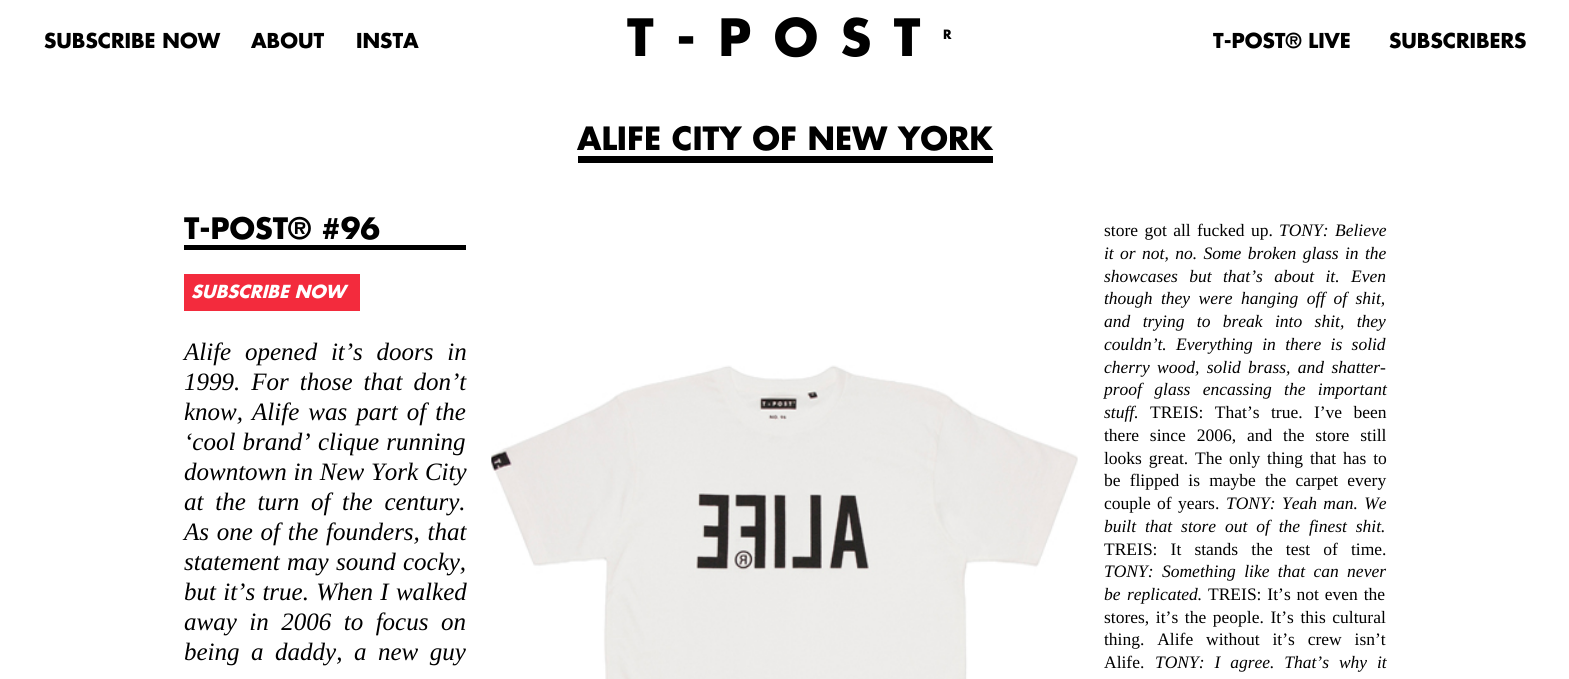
import math
import cairocffi as cairo

surface = cairo.ImageSurface(cairo.FORMAT_RGB24, 1569, 679)
ctx = cairo.Context(surface)
options = cairo.FontOptions()
options.set_hint_metrics(cairo.HINT_METRICS_OFF)
options.set_hint_style(cairo.HINT_STYLE_NONE)
ctx.set_font_options(options)
ctx.set_miter_limit(4)


def rgb(r, g, b):
    ctx.set_source_rgb(r / 255, g / 255, b / 255)


def face(family, size, italic, bold):
    ctx.select_font_face(family, cairo.FONT_SLANT_ITALIC if italic else cairo.FONT_SLANT_NORMAL, cairo.FONT_WEIGHT_BOLD if bold else cairo.FONT_WEIGHT_NORMAL)
    ctx.set_font_size(size)


def label(x, y, s):
    ctx.move_to(x, y)
    ctx.show_text(s)


def tracked(x, y, s, letter, word):
    ctx.move_to(x, y)
    for ch in s:
        ctx.show_text(ch)
        ctx.rel_move_to(letter + word * (ch == ' '), 0)


def rect(x, y, w, h):
    ctx.rectangle(x, y, w, h)
    ctx.fill()


def image(path, x, y, w, h):
    ctx.save()
    ctx.set_source_surface(cairo.ImageSurface.create_from_png(path), x, y)
    ctx.rectangle(x, y, w, h)
    ctx.fill()
    ctx.restore()


rgb(255, 255, 255)
ctx.paint()
face('Futura', 20, 0, 1)
rgb(0, 0, 0)
label(44, 48, 'SUBSCRIBE NOW')
label(251, 48, 'ABOUT')
label(356, 48, 'INSTA')
face('Futura', 50, 0, 1)
tracked(627, 56, 'T-POST', 22.5, 0)
face('Futura', 12.5, 0, 1)
tracked(943, 39, 'R', 22.5, 0)
face('Futura', 20, 0, 1)
label(1213, 48, 'T-POST® LIVE')
label(1389, 48, 'SUBSCRIBERS')
rect(578, 156, 415, 7)
face('Futura', 31.25, 0, 1)
label(577, 150, 'ALIFE CITY OF NEW YORK')
rect(184, 245, 282, 5)
face('Futura', 28.75, 0, 1)
label(184, 239, 'T-POST® #96')
rgb(243, 43, 61)
rect(184, 274, 176, 37)
face('Futura', 17.5, 1, 1)
rgb(255, 255, 255)
label(191, 298, 'SUBSCRIBE NOW')
face('Liberation Serif', 25, 1, 0)
rgb(0, 0, 0)
tracked(184, 360, 'Alife opened it’s doors in', 0, 7.5)
tracked(184, 390, '1999. For those that don’t', 0, 4.75)
tracked(184, 420, 'know, Alife was part of the', 0, 2.75)
tracked(184, 450, '‘cool brand’ clique running', 0, 1)
tracked(184, 480, 'downtown in New York City', 0, 0.5)
tracked(184, 510, 'at the turn of the century.', 0, 5.5)
tracked(184, 540, 'As one of the founders, that', 0, 1.5)
tracked(184, 570, 'statement may sound cocky,', 0, 1)
tracked(184, 600, 'but it’s true. When I walked', 0, 1)
tracked(184, 630, 'away in 2006 to focus on', 0, 6.25)
tracked(184, 660, 'being a daddy, a new guy', 0, 5.25)
image('image0.png', 491, 365, 587, 314)
face('Liberation Serif', 17.5, 0, 0)
tracked(1104, 236, 'store got all fucked up.', 0, 2)
face('Liberation Serif', 17.5, 1, 0)
tracked(1279, 236, 'TONY: Believe', 0, 2)
tracked(1104, 259, 'it or not, no. Some broken glass in the', 0, 2)
tracked(1104, 282, 'showcases but that’s about it. Even', 0, 7)
tracked(1104, 304, 'though they were hanging off of shit,', 0, 4)
tracked(1104, 327, 'and trying to break into shit, they', 0, 8)
tracked(1104, 350, 'couldn’t. Everything in there is solid', 0, 5)
tracked(1104, 373, 'cherry wood, solid brass, and shatter-', 0, 3)
tracked(1104, 395, 'proof glass encassing the important', 0, 8)
label(1104, 418, 'stuff.')
face('Liberation Serif', 17.5, 0, 0)
tracked(1150, 418, 'TREIS: That’s true. I’ve been', 0, 7)
tracked(1104, 441, 'there since 2006, and the store still', 0, 6.5)
tracked(1104, 464, 'looks great. The only thing that has to', 0, 2.5)
tracked(1104, 486, 'be flipped is maybe the carpet every', 0, 4.75)
tracked(1104, 509, 'couple of years.', 0, 2)
face('Liberation Serif', 17.5, 1, 0)
tracked(1226, 509, 'TONY: Yeah man. We', 0, 2)
tracked(1104, 532, 'built that store out of the finest shit.', 0, 4.5)
face('Liberation Serif', 17.5, 0, 0)
tracked(1104, 555, 'TREIS: It stands the test of time.', 0, 8.75)
face('Liberation Serif', 17.5, 1, 0)
tracked(1104, 577, 'TONY: Something like that can never', 0, 4)
tracked(1104, 600, 'be replicated.', 0, 2)
face('Liberation Serif', 17.5, 0, 0)
tracked(1208, 600, 'TREIS: It’s not even the', 0, 1.5)
tracked(1104, 623, 'stores, it’s the people. It’s this cultural', 0, 2.25)
tracked(1104, 645, 'thing. Alife without it’s crew isn’t', 0, 8.5)
label(1104, 668, 'Alife.')
face('Liberation Serif', 17.5, 1, 0)
tracked(1155, 668, 'TONY: I agree. That’s why it', 0, 5.5)
surface.write_to_png('render.png')
